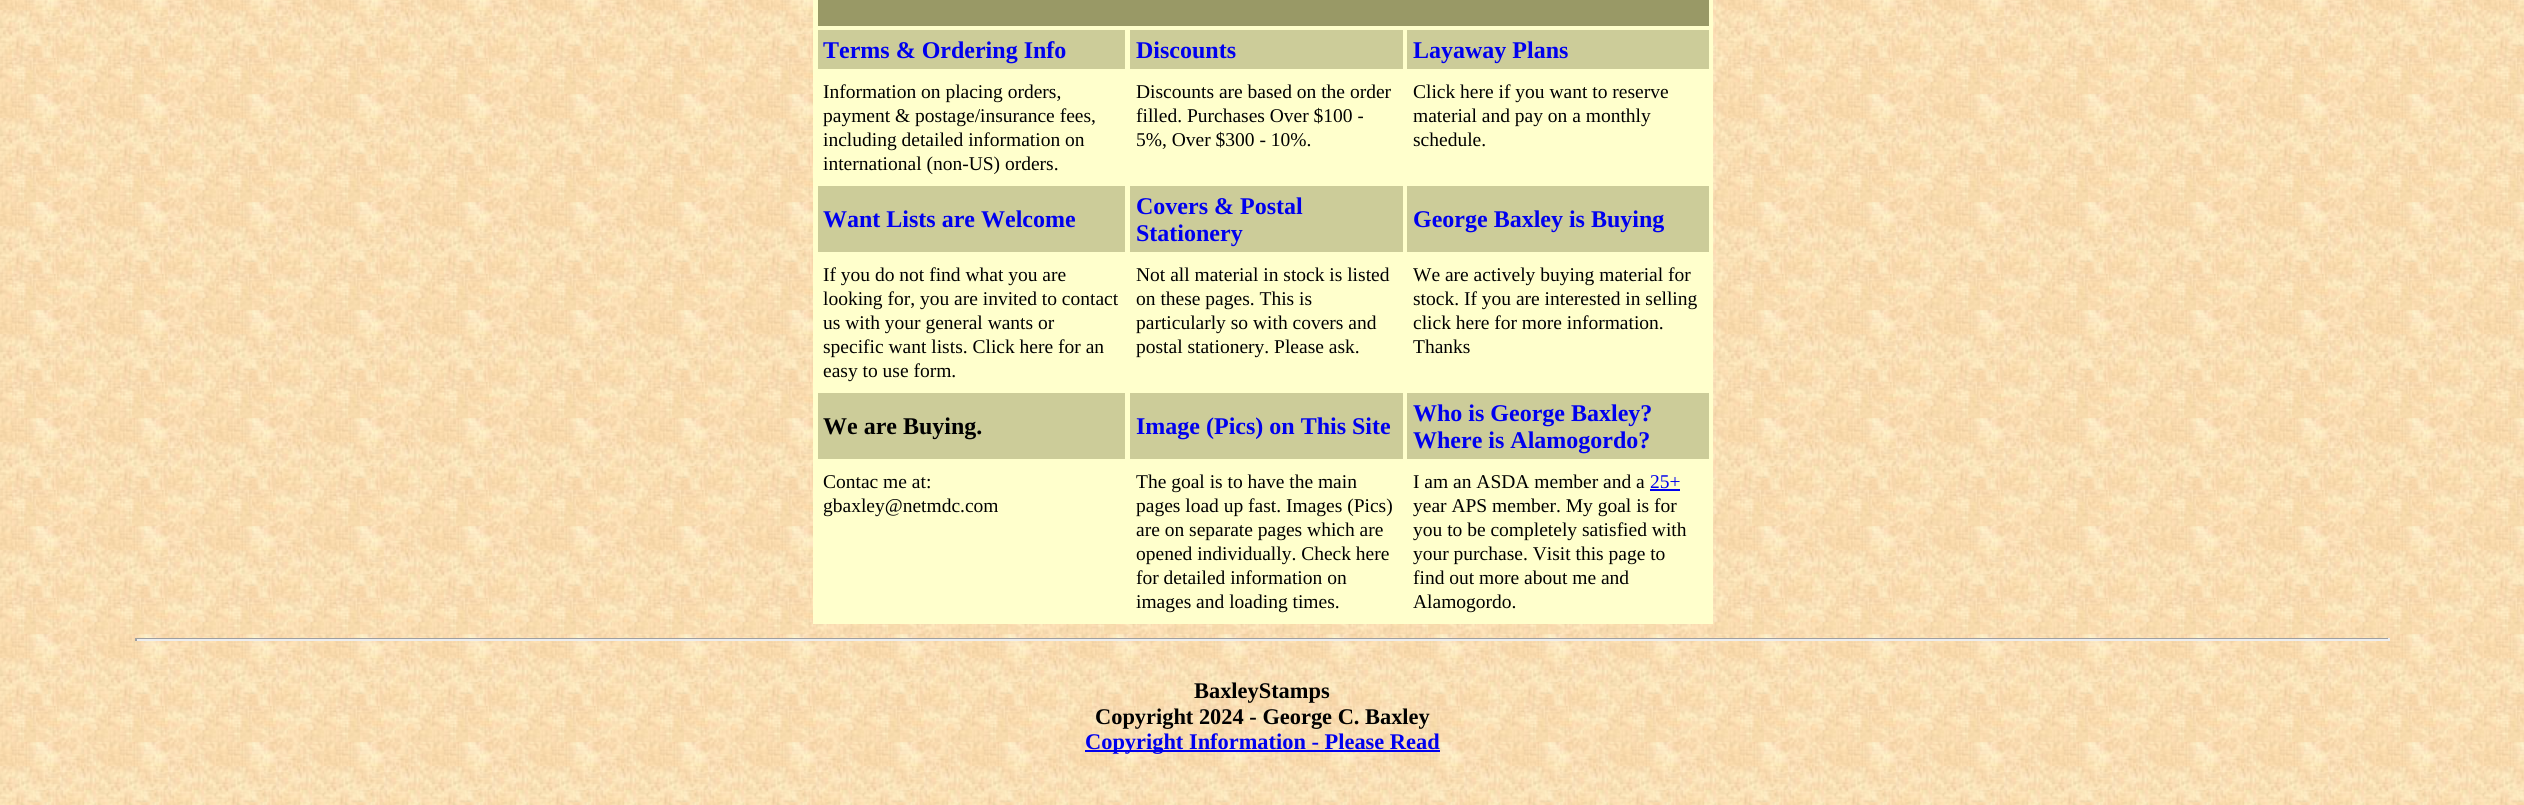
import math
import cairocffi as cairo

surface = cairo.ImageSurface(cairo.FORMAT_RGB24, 2524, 805)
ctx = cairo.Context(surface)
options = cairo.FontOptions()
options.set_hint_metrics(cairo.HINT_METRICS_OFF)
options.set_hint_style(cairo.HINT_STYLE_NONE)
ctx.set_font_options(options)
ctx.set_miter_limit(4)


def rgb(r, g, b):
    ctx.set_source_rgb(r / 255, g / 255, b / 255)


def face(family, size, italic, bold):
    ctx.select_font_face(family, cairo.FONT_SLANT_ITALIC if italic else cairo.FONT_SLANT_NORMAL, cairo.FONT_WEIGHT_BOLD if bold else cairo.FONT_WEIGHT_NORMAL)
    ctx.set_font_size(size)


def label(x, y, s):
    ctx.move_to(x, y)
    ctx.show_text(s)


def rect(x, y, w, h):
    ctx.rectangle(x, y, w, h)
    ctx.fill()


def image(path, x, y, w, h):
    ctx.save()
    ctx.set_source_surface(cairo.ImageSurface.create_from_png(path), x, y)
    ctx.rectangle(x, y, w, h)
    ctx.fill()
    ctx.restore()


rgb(255, 255, 255)
ctx.paint()
image('image0.png', 0, 0, 2524, 805)
rgb(255, 255, 204)
rect(813, 0, 900, 624)
rgb(153, 153, 102)
rect(818, 0, 891, 26)
rgb(204, 204, 153)
rect(818, 30, 307, 39)
face('Liberation Serif', 24, 0, 1)
rgb(0, 0, 238)
label(823, 58, 'Terms & Ordering Info')
rgb(204, 204, 153)
rect(1130, 30, 273, 39)
rgb(0, 0, 238)
label(1136, 58, 'Discounts')
rgb(204, 204, 153)
rect(1407, 30, 302, 39)
rgb(0, 0, 238)
label(1413, 58, 'Layaway Plans')
face('Liberation Serif', 19.5, 0, 0)
rgb(0, 0, 0)
label(823, 98, 'Information on placing orders,')
label(823, 122, 'payment & postage/insurance fees,')
label(823, 146, 'including detailed information on')
label(823, 170, 'international (non-US) orders.')
label(1136, 98, 'Discounts are based on the order')
label(1136, 122, 'filled. Purchases Over $100 -')
label(1136, 146, '5%, Over $300 - 10%.')
label(1413, 98, 'Click here if you want to reserve')
label(1413, 122, 'material and pay on a monthly')
label(1413, 146, 'schedule.')
rgb(204, 204, 153)
rect(818, 186, 307, 66)
face('Liberation Serif', 24, 0, 1)
rgb(0, 0, 238)
label(823, 227, 'Want Lists are Welcome')
rgb(204, 204, 153)
rect(1130, 186, 273, 66)
rgb(0, 0, 238)
label(1136, 214, 'Covers & Postal')
label(1136, 241, 'Stationery')
rgb(204, 204, 153)
rect(1407, 186, 302, 66)
rgb(0, 0, 238)
label(1413, 227, 'George Baxley is Buying')
face('Liberation Serif', 19.5, 0, 0)
rgb(0, 0, 0)
label(823, 281, 'If you do not find what you are')
label(823, 305, 'looking for, you are invited to contact')
label(823, 329, 'us with your general wants or')
label(823, 353, 'specific want lists. Click here for an')
label(823, 377, 'easy to use form.')
label(1136, 281, 'Not all material in stock is listed')
label(1136, 305, 'on these pages. This is')
label(1136, 329, 'particularly so with covers and')
label(1136, 353, 'postal stationery. Please ask.')
label(1413, 281, 'We are actively buying material for')
label(1413, 305, 'stock. If you are interested in selling')
label(1413, 329, 'click here for more information.')
label(1413, 353, 'Thanks')
rgb(204, 204, 153)
rect(818, 393, 307, 66)
face('Liberation Serif', 24, 0, 1)
rgb(0, 0, 0)
label(823, 434, 'We are Buying.')
rgb(204, 204, 153)
rect(1130, 393, 273, 66)
rgb(0, 0, 238)
label(1136, 434, 'Image (Pics) on This Site')
rgb(204, 204, 153)
rect(1407, 393, 302, 66)
rgb(0, 0, 238)
label(1413, 421, 'Who is George Baxley?')
label(1413, 448, 'Where is Alamogordo?')
face('Liberation Serif', 19.5, 0, 0)
rgb(0, 0, 0)
label(823, 488, 'Contac me at:')
label(823, 512, 'gbaxley@netmdc.com')
label(1136, 488, 'The goal is to have the main')
label(1136, 512, 'pages load up fast. Images (Pics)')
label(1136, 536, 'are on separate pages which are')
label(1136, 560, 'opened individually. Check here')
label(1136, 584, 'for detailed information on')
label(1136, 608, 'images and loading times.')
label(1413, 488, 'I am an ASDA member and a')
rgb(0, 0, 238)
label(1650, 488, '25+')
rect(1650, 489, 30, 2)
rgb(0, 0, 0)
label(1413, 512, 'year APS member. My goal is for')
label(1413, 536, 'you to be completely satisfied with')
label(1413, 560, 'your purchase. Visit this page to')
label(1413, 584, 'find out more about me and')
label(1413, 608, 'Alamogordo.')
rgb(159, 159, 159)
rect(135, 638, 2255, 1)
rgb(238, 238, 238)
rect(2388, 638, 2, 3)
rect(135, 639, 2255, 2)
rgb(159, 159, 159)
rect(135, 638, 2, 3)
face('Liberation Serif', 22.4, 0, 1)
rgb(0, 0, 0)
label(1194, 698, 'BaxleyStamps')
label(1095, 724, 'Copyright 2024 - George C. Baxley')
rgb(0, 0, 238)
rect(1085, 750, 355, 2)
label(1085, 749, 'Copyright Information - Please Read')
surface.write_to_png('render.png')
